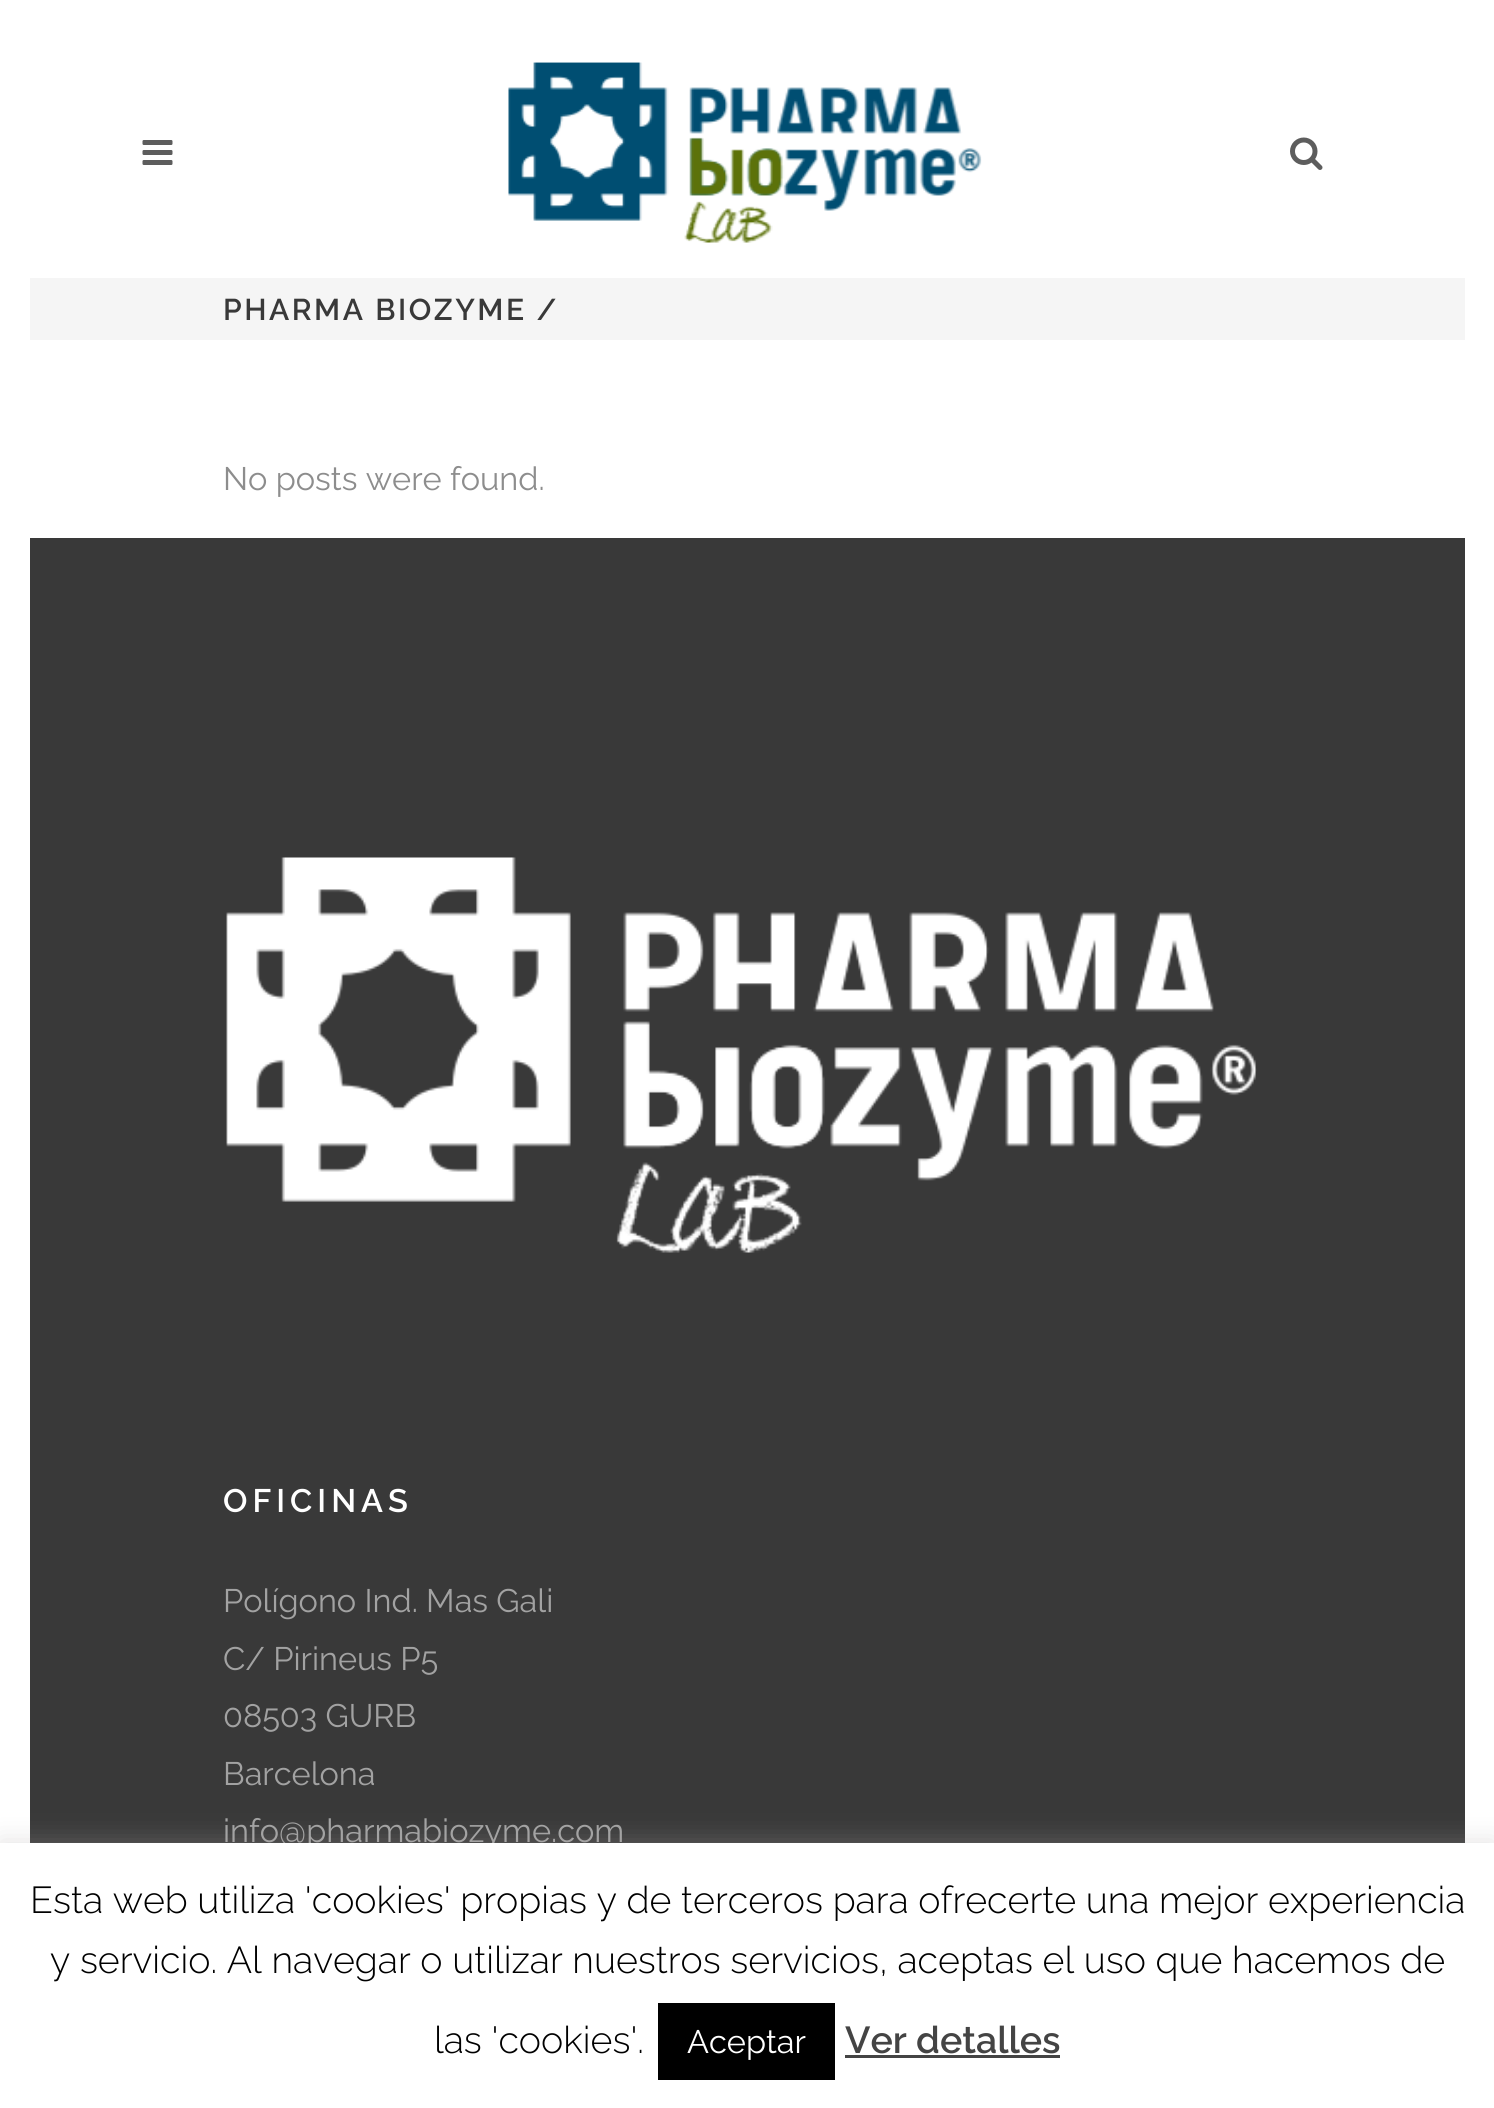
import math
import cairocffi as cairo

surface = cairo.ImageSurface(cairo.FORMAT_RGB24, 1494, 2108)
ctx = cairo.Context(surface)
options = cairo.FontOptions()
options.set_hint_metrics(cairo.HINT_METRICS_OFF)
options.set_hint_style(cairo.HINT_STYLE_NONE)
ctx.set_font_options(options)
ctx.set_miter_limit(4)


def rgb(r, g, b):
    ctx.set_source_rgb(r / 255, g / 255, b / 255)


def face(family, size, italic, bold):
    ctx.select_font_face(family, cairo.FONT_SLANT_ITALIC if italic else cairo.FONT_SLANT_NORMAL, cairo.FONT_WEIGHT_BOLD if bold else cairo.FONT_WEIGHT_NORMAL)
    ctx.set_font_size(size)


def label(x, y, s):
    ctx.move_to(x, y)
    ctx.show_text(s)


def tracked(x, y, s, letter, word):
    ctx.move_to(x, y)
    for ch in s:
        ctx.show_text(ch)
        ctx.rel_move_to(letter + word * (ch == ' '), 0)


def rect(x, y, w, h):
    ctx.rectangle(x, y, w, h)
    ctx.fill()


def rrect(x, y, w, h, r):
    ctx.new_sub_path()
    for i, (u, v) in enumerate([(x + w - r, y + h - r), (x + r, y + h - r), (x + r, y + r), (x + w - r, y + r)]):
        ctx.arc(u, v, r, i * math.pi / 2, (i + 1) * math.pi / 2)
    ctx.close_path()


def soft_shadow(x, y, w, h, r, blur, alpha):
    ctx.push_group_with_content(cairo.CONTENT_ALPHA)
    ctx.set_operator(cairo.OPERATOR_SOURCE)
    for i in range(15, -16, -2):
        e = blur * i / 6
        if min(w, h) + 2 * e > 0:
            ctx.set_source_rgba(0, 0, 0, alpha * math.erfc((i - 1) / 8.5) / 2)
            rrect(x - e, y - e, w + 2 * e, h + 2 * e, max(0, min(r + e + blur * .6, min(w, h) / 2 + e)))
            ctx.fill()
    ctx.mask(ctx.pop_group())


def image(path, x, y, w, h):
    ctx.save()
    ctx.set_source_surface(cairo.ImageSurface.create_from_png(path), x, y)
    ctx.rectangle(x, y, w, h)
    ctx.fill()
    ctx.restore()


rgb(255, 255, 255)
ctx.paint()
image('image0.png', 142, 140, 31, 25)
image('image1.png', 508, 62, 474, 181)
image('image2.png', 1290, 137, 33, 33)
rgb(245, 245, 245)
rect(30, 278, 1435, 62)
face('Raleway SemiBold', 30, 0, 0)
rgb(57, 57, 57)
tracked(223, 320, 'PHARMA BIOZYME /', 2.5, 0)
face('Raleway', 32.5, 0, 0)
rgb(141, 141, 141)
label(223, 490, 'No posts were found.')
rgb(57, 57, 57)
rect(30, 538, 1435, 1305)
image('image3.png', 226, 857, 1031, 396)
face('Raleway SemiBold', 32.5, 0, 0)
rgb(255, 255, 255)
tracked(223, 1512, 'OFICINAS', 5, 0)
face('Raleway', 32.5, 0, 0)
rgb(162, 162, 162)
label(223, 1612, 'Polígono Ind. Mas Gali')
label(223, 1670, 'C/ Pirineus P5')
label(223, 1727, '08503 GURB')
label(223, 1785, 'Barcelona')
label(223, 1842, 'info@pharmabiozyme.com')
rgb(172, 171, 171)
soft_shadow(0, 1840, 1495, 268, 0, 12.5, 0.3)
rgb(255, 255, 255)
rect(0, 1843, 1494, 265)
face('Raleway Light', 37.5, 0, 0)
rgb(0, 0, 0)
label(30, 1913, 'Esta web utiliza \'cookies\' propias y de terceros para ofrecerte una mejor experiencia')
label(50, 1973, 'y servicio. Al navegar o utilizar nuestros servicios, aceptas el uso que hacemos de')
label(434, 2053, 'las \'cookies\'.')
rect(658, 2003, 177, 77)
face('Raleway', 32.5, 0, 0)
rgb(255, 255, 255)
label(687, 2053, 'Aceptar')
face('Raleway SemiBold', 37.5, 0, 0)
rgb(68, 68, 68)
label(845, 2053, 'Ver detalles')
rect(845, 2055, 215, 3)
surface.write_to_png('render.png')
